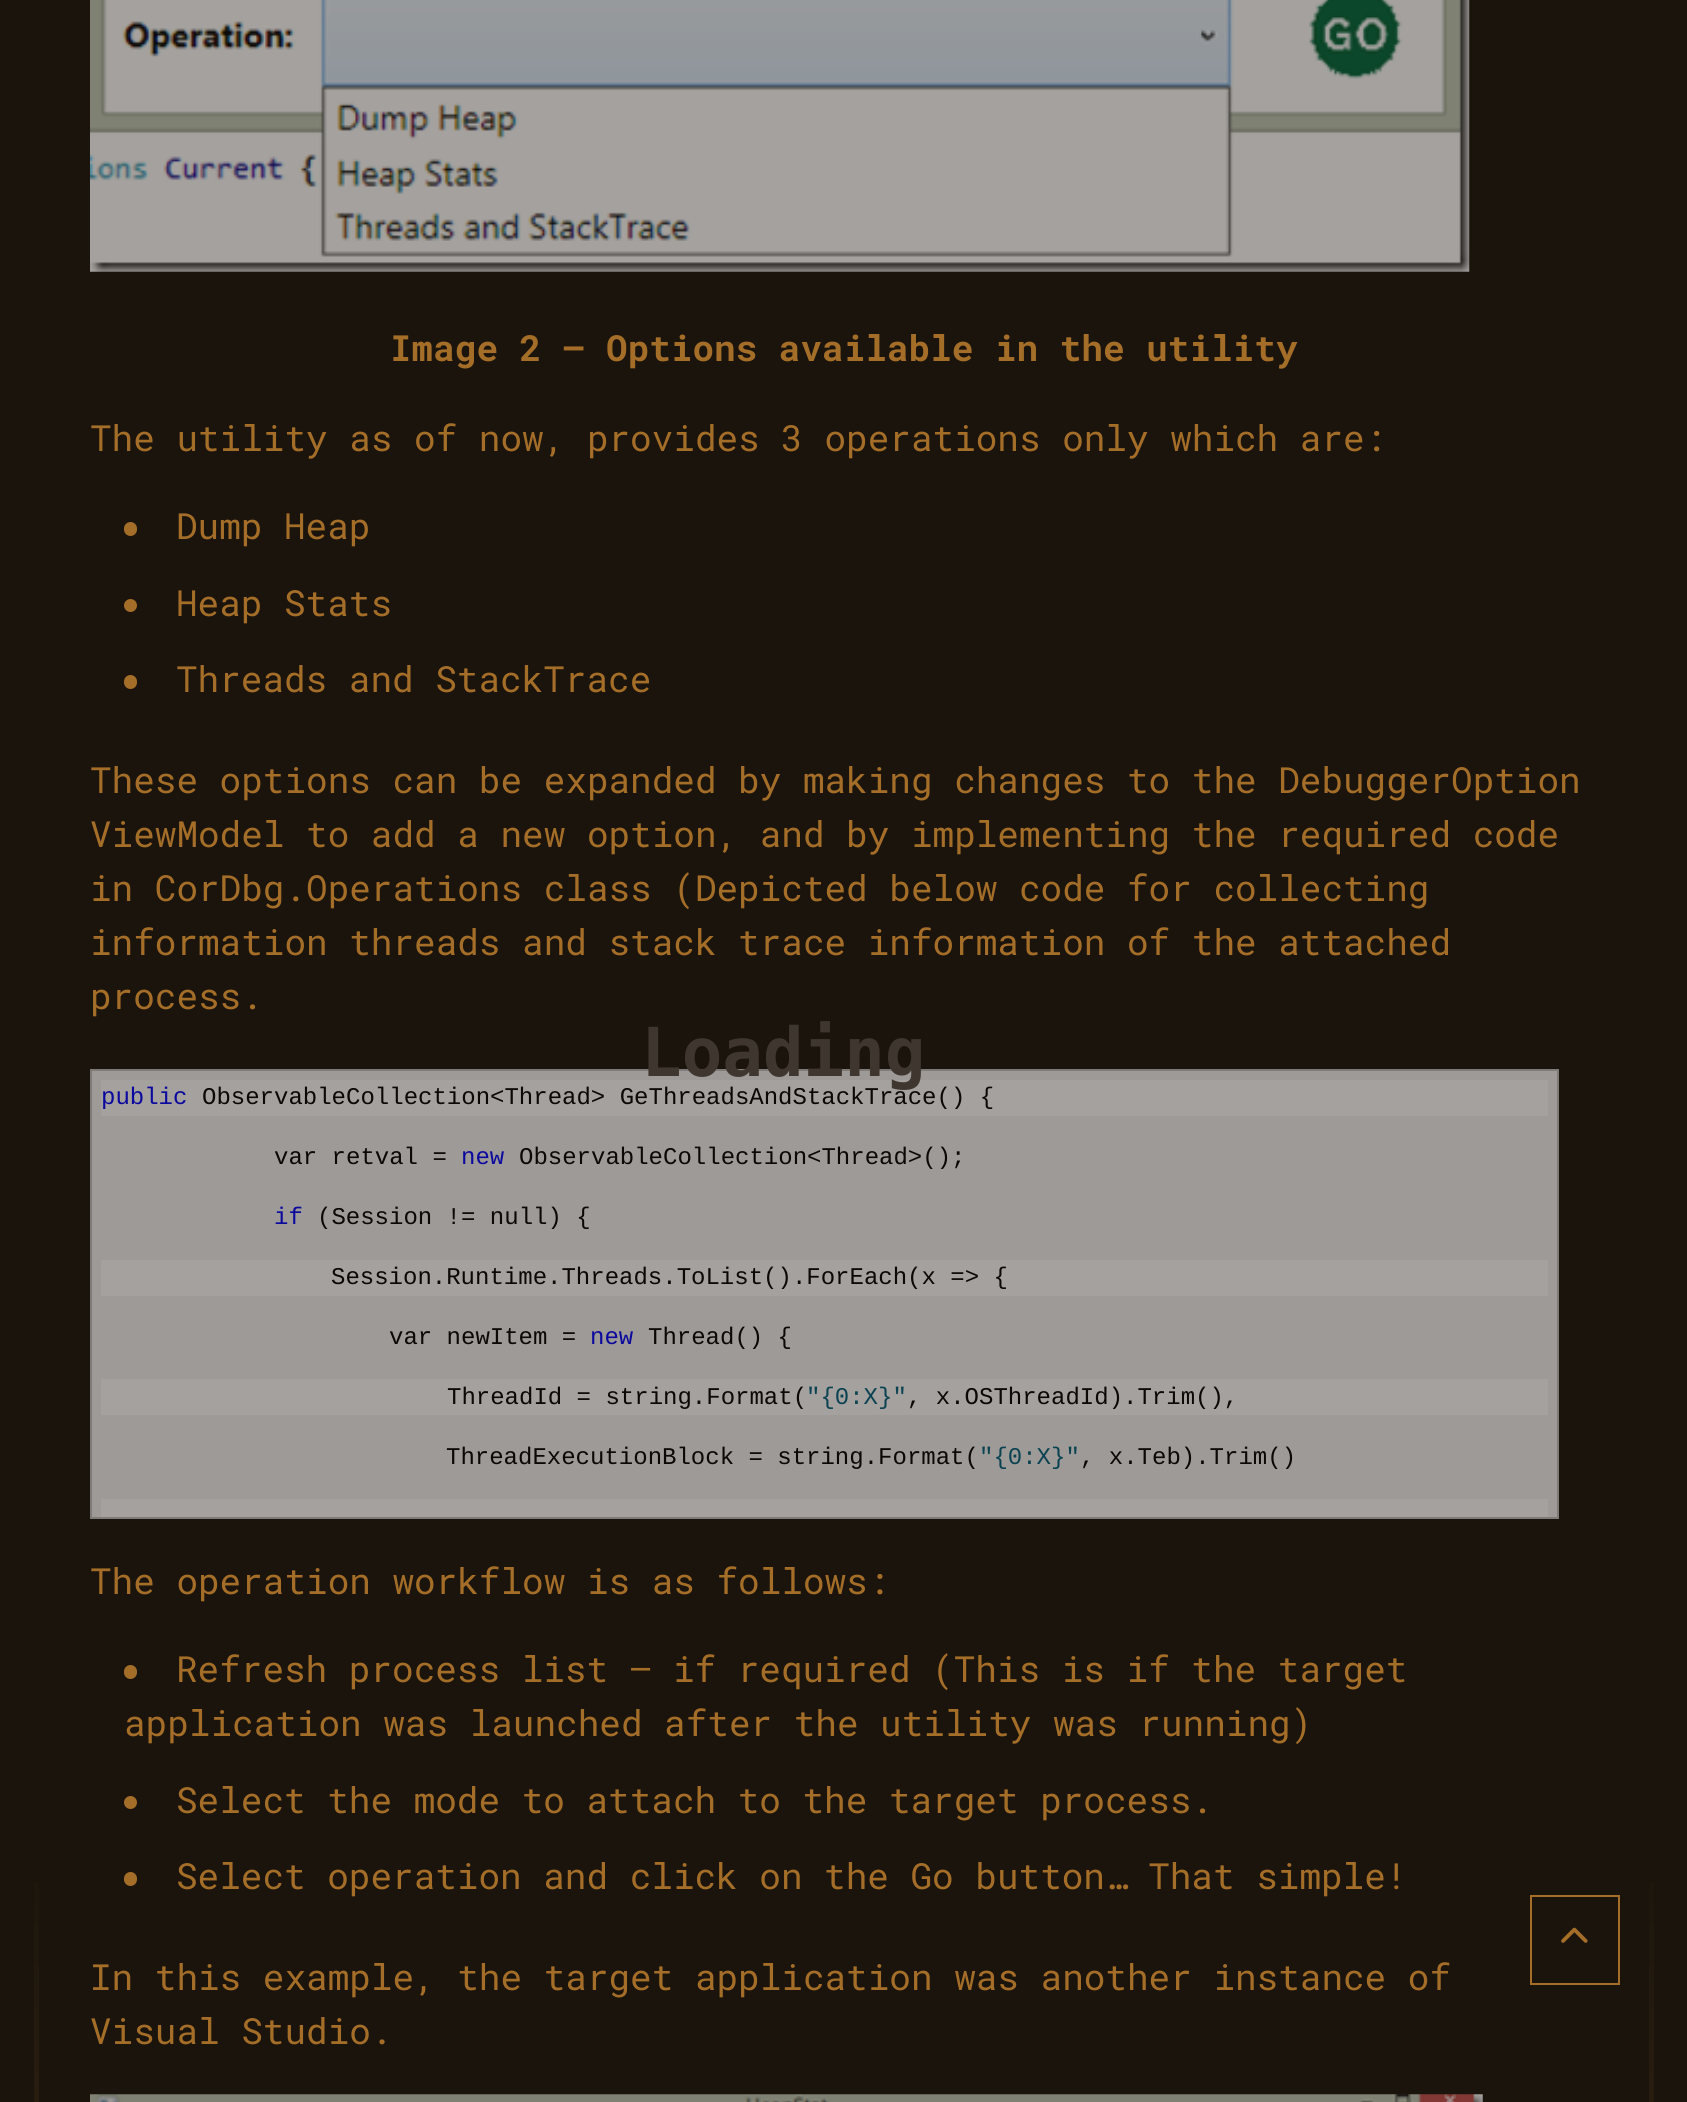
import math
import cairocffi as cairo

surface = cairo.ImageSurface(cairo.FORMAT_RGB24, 1687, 2102)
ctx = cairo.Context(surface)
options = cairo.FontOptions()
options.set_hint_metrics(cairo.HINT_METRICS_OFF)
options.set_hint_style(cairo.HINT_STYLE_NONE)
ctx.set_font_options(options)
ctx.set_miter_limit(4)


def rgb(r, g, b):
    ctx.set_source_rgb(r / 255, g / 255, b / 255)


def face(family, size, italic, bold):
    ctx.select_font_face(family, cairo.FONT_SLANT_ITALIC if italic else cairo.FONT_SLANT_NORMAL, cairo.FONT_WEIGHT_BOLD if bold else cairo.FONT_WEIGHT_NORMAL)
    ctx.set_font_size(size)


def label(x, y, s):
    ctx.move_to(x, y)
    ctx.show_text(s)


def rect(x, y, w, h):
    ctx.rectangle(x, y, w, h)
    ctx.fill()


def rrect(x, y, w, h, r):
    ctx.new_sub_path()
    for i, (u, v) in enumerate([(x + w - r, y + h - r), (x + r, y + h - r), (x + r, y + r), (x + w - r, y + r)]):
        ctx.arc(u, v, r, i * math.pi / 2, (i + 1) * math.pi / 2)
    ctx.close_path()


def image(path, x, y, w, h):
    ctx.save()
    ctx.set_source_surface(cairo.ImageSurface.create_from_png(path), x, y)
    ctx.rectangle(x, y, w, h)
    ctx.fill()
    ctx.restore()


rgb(27, 20, 12)
ctx.paint()
gradient = cairo.LinearGradient(36, -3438, 36, 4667)
gradient.add_color_stop_rgba(0, 0.643, 0.431, 0.161, 1)
gradient.add_color_stop_rgba(0.35, 0.106, 0.078, 0.047, 1)
gradient.add_color_stop_rgba(0.65, 0.106, 0.078, 0.047, 1)
gradient.add_color_stop_rgba(1, 0.643, 0.431, 0.161, 1)
ctx.set_source(gradient)
rect(34, 1882, 5, 220)
image('image0.png', 90, 0, 1380, 272)
face('Roboto Mono', 36, 0, 1)
rgb(164, 110, 41)
label(390, 361, 'Image 2 – Options available in the utility')
face('Roboto Mono', 36, 0, 0)
label(90, 451, 'The utility as of now, provides 3 operations only which are:')
rrect(124, 522, 13, 14, 6.5)
ctx.fill()
label(176, 539, 'Dump Heap')
ctx.new_path()
ctx.arc(130.5, 605.5, 6.5, 0, 2 * math.pi)
ctx.fill()
label(176, 616, 'Heap Stats')
rrect(124, 675, 13, 14, 6.5)
ctx.fill()
label(176, 692, 'Threads and StackTrace')
label(90, 793, 'These options can be expanded by making changes to the DebuggerOption')
label(90, 847, 'ViewModel to add a new option, and by implementing the required code')
label(90, 901, 'in CorDbg.Operations class (Depicted below code for collecting')
label(90, 955, 'information threads and stack trace information of the attached')
label(90, 1009, 'process.')
rgb(157, 154, 151)
ctx.rectangle(91, 1070, 1467, 448)
ctx.fill_preserve()
rgb(126, 123, 120)
ctx.stroke()
rgb(164, 161, 158)
rect(101, 1080, 1447, 36)
face('Liberation Mono', 24, 0, 0)
rgb(11, 8, 158)
label(101, 1104, 'public')
rgb(11, 8, 5)
label(202, 1104, 'ObservableCollection<Thread> GeThreadsAndStackTrace() {')
label(274, 1164, 'var retval =')
rgb(11, 8, 158)
label(461, 1164, 'new')
rgb(11, 8, 5)
label(519, 1164, 'ObservableCollection<Thread>();')
rgb(11, 8, 158)
label(274, 1224, 'if')
rgb(11, 8, 5)
label(317, 1224, '(Session != null) {')
rgb(164, 161, 158)
rect(101, 1260, 1447, 36)
rgb(11, 8, 5)
label(331, 1284, 'Session.Runtime.Threads.ToList().ForEach(x => {')
label(389, 1344, 'var newItem =')
rgb(11, 8, 158)
label(590, 1344, 'new')
rgb(11, 8, 5)
label(648, 1344, 'Thread() {')
rgb(164, 161, 158)
rect(101, 1379, 1447, 36)
rgb(11, 8, 5)
label(447, 1404, 'ThreadId = string.Format(')
rgb(11, 66, 82)
label(806, 1404, '"{0:X}"')
rgb(11, 8, 5)
label(907, 1404, ', x.OSThreadId).Trim(),')
label(446, 1464, 'ThreadExecutionBlock = string.Format(')
rgb(11, 66, 82)
label(979, 1464, '"{0:X}"')
rgb(11, 8, 5)
label(1080, 1464, ', x.Teb).Trim()')
rgb(164, 161, 158)
rect(101, 1499, 1447, 18)
face('Roboto Mono', 36, 0, 0)
rgb(164, 110, 41)
label(90, 1594, 'The operation workflow is as follows:')
rrect(124, 1665, 13, 14, 6.5)
ctx.fill()
label(176, 1682, 'Refresh process list – if required (This is if the target')
label(124, 1736, 'application was launched after the utility was running)')
ctx.new_path()
ctx.arc(130.5, 1802.5, 6.5, 0, 2 * math.pi)
ctx.fill()
label(176, 1813, 'Select the mode to attach to the target process.')
rrect(124, 1872, 13, 14, 6.5)
ctx.fill()
label(176, 1889, 'Select operation and click on the Go button… That simple!')
label(90, 1990, 'In this example, the target application was another instance of')
label(90, 2044, 'Visual Studio.')
image('image1.png', 90, 2094, 1393, 8)
gradient = cairo.LinearGradient(1651, -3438, 1652, 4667)
gradient.add_color_stop_rgba(0, 0.643, 0.431, 0.161, 1)
gradient.add_color_stop_rgba(0.35, 0.106, 0.078, 0.047, 1)
gradient.add_color_stop_rgba(0.65, 0.106, 0.078, 0.047, 1)
gradient.add_color_stop_rgba(1, 0.643, 0.431, 0.161, 1)
ctx.set_source(gradient)
rect(1649, 1882, 5, 220)
face('DejaVu Sans Mono', 67.5, 0, 1)
rgb(63, 55, 47)
label(641, 1076, 'Loading')
ctx.rectangle(1531, 1896, 88, 88)
rgb(164, 110, 41)
ctx.stroke()
image('image2.png', 1561, 1927, 27, 16)
surface.write_to_png('render.png')
